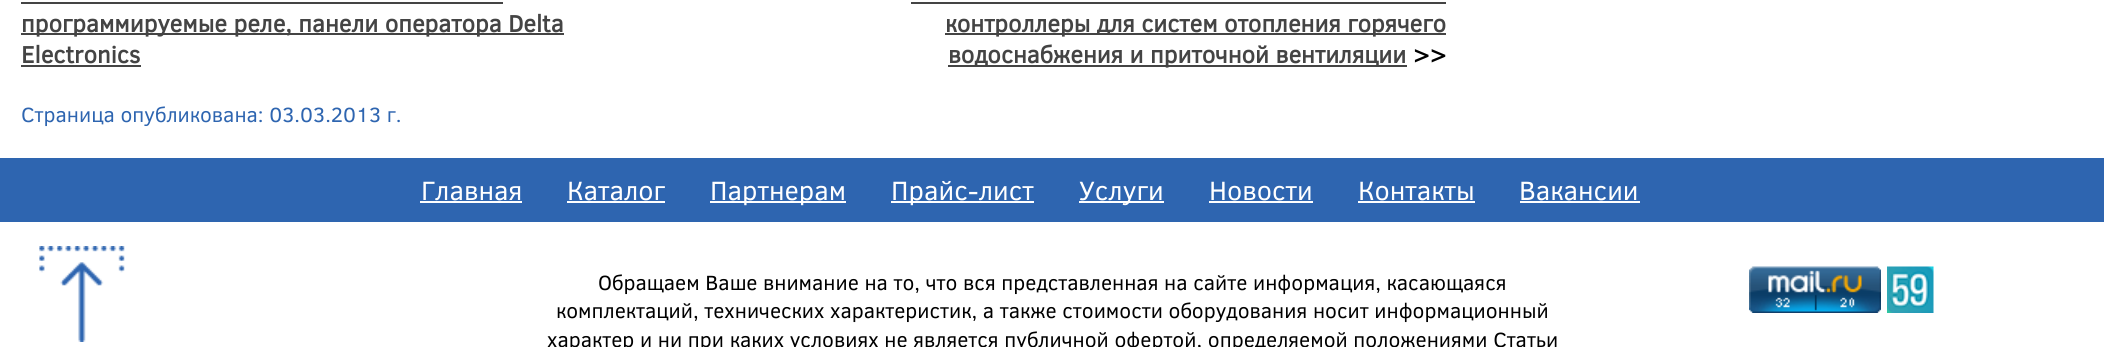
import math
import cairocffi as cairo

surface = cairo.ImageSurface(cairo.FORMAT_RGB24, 2104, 347)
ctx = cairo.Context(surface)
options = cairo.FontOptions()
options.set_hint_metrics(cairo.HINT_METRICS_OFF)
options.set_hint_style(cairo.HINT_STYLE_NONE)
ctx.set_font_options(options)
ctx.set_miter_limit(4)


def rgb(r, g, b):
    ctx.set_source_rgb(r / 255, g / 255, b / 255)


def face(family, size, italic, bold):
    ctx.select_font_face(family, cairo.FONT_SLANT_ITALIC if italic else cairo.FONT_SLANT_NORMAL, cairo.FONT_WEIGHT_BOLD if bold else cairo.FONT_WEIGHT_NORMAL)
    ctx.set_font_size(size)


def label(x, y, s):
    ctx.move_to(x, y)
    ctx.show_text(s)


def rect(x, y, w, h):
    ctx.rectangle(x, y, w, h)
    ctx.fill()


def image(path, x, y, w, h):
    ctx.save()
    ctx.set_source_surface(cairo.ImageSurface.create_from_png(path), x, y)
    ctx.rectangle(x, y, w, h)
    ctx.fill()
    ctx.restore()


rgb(255, 255, 255)
ctx.paint()
rgb(68, 68, 68)
rect(21, 33, 543, 2)
face('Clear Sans', 24, 0, 1)
label(21, 32, 'программируемые реле, панели оператора Delta')
rect(21, 2, 482, 2)
label(21, 63, 'Electronics')
rect(21, 65, 120, 2)
rect(945, 33, 501, 2)
label(945, 32, 'контроллеры для систем отопления горячего')
rect(911, 2, 535, 2)
rect(948, 65, 459, 2)
label(948, 63, 'водоснабжения и приточной вентиляции')
rgb(0, 0, 0)
label(1413, 63, '>>')
face('Clear Sans', 21, 0, 0)
rgb(46, 101, 176)
label(21, 122, 'Страница опубликована: 03.03.2013 г.')
rect(0, 158, 2104, 64)
face('Clear Sans', 27, 0, 0)
rgb(255, 255, 255)
label(421, 200, 'Главная')
rect(420, 201, 102, 2)
label(567, 200, 'Каталог')
rect(567, 201, 98, 2)
rect(710, 201, 136, 2)
label(710, 200, 'Партнерам')
rect(891, 201, 143, 2)
label(891, 200, 'Прайс-лист')
rect(1079, 201, 85, 2)
label(1079, 200, 'Услуги')
label(1209, 200, 'Новости')
rect(1209, 201, 104, 2)
label(1358, 200, 'Контакты')
rect(1358, 201, 117, 2)
label(1519, 200, 'Вакансии')
rect(1520, 201, 120, 2)
image('image0.png', 39, 246, 86, 96)
face('Clear Sans', 21, 0, 0)
rgb(0, 0, 0)
label(598, 290, 'Обращаем Ваше внимание на то, что вся представленная на сайте информация, касающаяся')
label(556, 318, 'комплектаций, технических характеристик, а также стоимости оборудования носит информационный')
label(547, 347, 'характер и ни при каких условиях не является публичной офертой, определяемой положениями Статьи')
image('image1.png', 1749, 266, 132, 47)
image('image2.png', 1887, 266, 47, 47)
surface.write_to_png('render.png')
